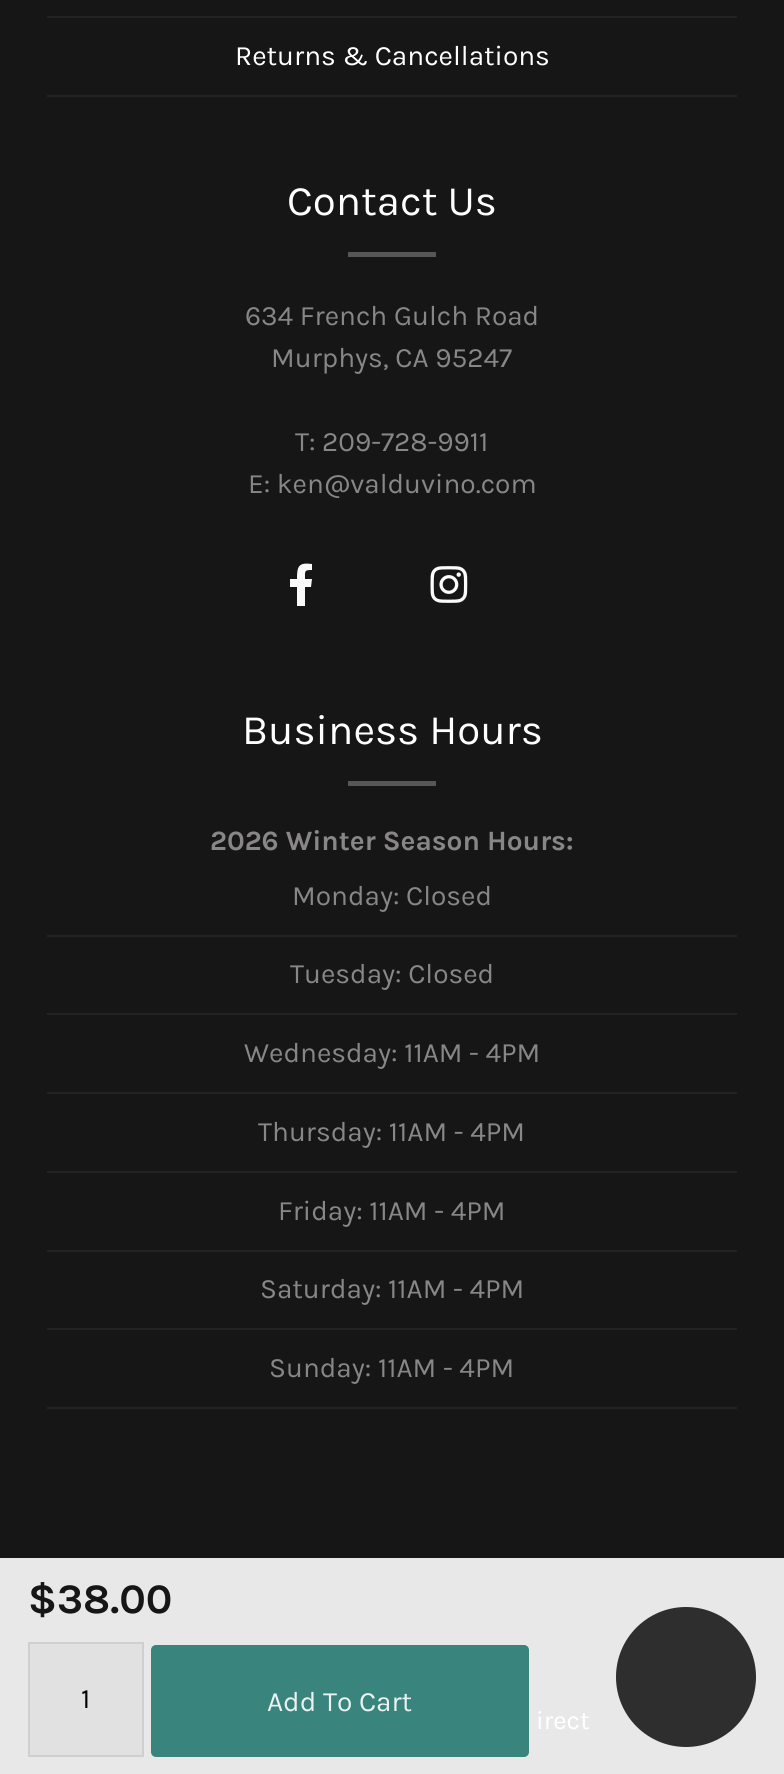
import math
import cairocffi as cairo

surface = cairo.ImageSurface(cairo.FORMAT_RGB24, 784, 1774)
ctx = cairo.Context(surface)
options = cairo.FontOptions()
options.set_hint_metrics(cairo.HINT_METRICS_OFF)
options.set_hint_style(cairo.HINT_STYLE_NONE)
ctx.set_font_options(options)
ctx.set_miter_limit(4)


def rgb(r, g, b):
    ctx.set_source_rgb(r / 255, g / 255, b / 255)


def face(family, size, italic, bold):
    ctx.select_font_face(family, cairo.FONT_SLANT_ITALIC if italic else cairo.FONT_SLANT_NORMAL, cairo.FONT_WEIGHT_BOLD if bold else cairo.FONT_WEIGHT_NORMAL)
    ctx.set_font_size(size)


def label(x, y, s):
    ctx.move_to(x, y)
    ctx.show_text(s)


def rect(x, y, w, h):
    ctx.rectangle(x, y, w, h)
    ctx.fill()


def rrect(x, y, w, h, r):
    ctx.new_sub_path()
    for i, (u, v) in enumerate([(x + w - r, y + h - r), (x + r, y + h - r), (x + r, y + r), (x + w - r, y + r)]):
        ctx.arc(u, v, r, i * math.pi / 2, (i + 1) * math.pi / 2)
    ctx.close_path()


def image(path, x, y, w, h):
    ctx.save()
    ctx.set_source_surface(cairo.ImageSurface.create_from_png(path), x, y)
    ctx.rectangle(x, y, w, h)
    ctx.fill()
    ctx.restore()


rgb(22, 22, 22)
ctx.paint()
rgb(232, 232, 232)
rect(0, 1558, 784, 216)
rgb(35, 35, 35)
rect(47, 16, 690, 2)
rect(47, 95, 690, 2)
face('Karla', 28, 0, 0)
rgb(255, 255, 255)
label(235, 65, 'Returns & Cancellations')
face('Karla', 42, 0, 0)
label(287, 215, 'Contact Us')
rgb(87, 87, 87)
rect(348, 252, 88, 5)
face('Karla', 28, 0, 0)
rgb(136, 134, 134)
label(245, 325, '634 French Gulch Road')
label(271, 367, 'Murphys, CA 95247')
label(295, 451, 'T: 209-728-9911')
label(248, 493, 'E: ken@valduvino.com')
rgb(251, 251, 251)
ctx.new_path()
ctx.move_to(297, 606)
ctx.line_to(297, 587)
ctx.line_to(290, 587)
ctx.line_to(290, 579)
ctx.line_to(297, 579)
ctx.curve_to(297, 567, 298, 562, 312, 564)
ctx.line_to(312, 570)
ctx.curve_to(304, 570, 305, 571, 305, 579)
ctx.line_to(312, 579)
ctx.line_to(311, 587)
ctx.line_to(305, 587)
ctx.line_to(305, 606)
ctx.close_path()
ctx.fill()
image('image0.png', 430, 566, 38, 37)
face('Karla', 42, 0, 0)
rgb(255, 255, 255)
label(242, 744, 'Business Hours')
rgb(87, 87, 87)
rect(348, 781, 88, 5)
face('Karla', 28, 0, 1)
rgb(136, 134, 134)
label(210, 850, '2026 Winter Season Hours:')
rgb(35, 35, 35)
rect(47, 935, 690, 2)
face('Karla', 28, 0, 0)
rgb(136, 134, 134)
label(292, 905, 'Monday: Closed')
rgb(35, 35, 35)
rect(47, 1013, 690, 2)
rgb(136, 134, 134)
label(290, 983, 'Tuesday: Closed')
rgb(35, 35, 35)
rect(47, 1092, 690, 2)
rgb(136, 134, 134)
label(244, 1062, 'Wednesday: 11AM - 4PM')
rgb(35, 35, 35)
rect(47, 1171, 690, 2)
rgb(136, 134, 134)
label(258, 1141, 'Thursday: 11AM - 4PM')
rgb(35, 35, 35)
rect(47, 1250, 690, 2)
rgb(136, 134, 134)
label(278, 1220, 'Friday: 11AM - 4PM')
rgb(35, 35, 35)
rect(47, 1328, 690, 2)
rgb(136, 134, 134)
label(260, 1298, 'Saturday: 11AM - 4PM')
rgb(35, 35, 35)
rect(47, 1407, 690, 2)
rgb(136, 134, 134)
label(269, 1377, 'Sunday: 11AM - 4PM')
face('Karla', 26, 0, 0)
rgb(255, 255, 255)
label(536, 1729, 'irect')
face('Karla', 42, 0, 1)
rgb(22, 22, 22)
label(28, 1613, '$38.00')
rgb(225, 225, 225)
ctx.rectangle(29, 1643, 114, 113)
ctx.fill_preserve()
rgb(207, 207, 207)
ctx.stroke()
face('Karla', 28, 0, 0)
rgb(2, 2, 2)
label(81, 1708, '1')
ctx.set_source_rgba(0.153, 0.475, 0.451, 0.9)
rrect(151, 1645, 378, 112, 5)
ctx.fill()
rgb(235, 243, 242)
label(267, 1711, 'Add To Cart')
rgb(46, 46, 46)
ctx.new_path()
ctx.arc(686, 1677, 70, 0, 2 * math.pi)
ctx.fill()
surface.write_to_png('render.png')
